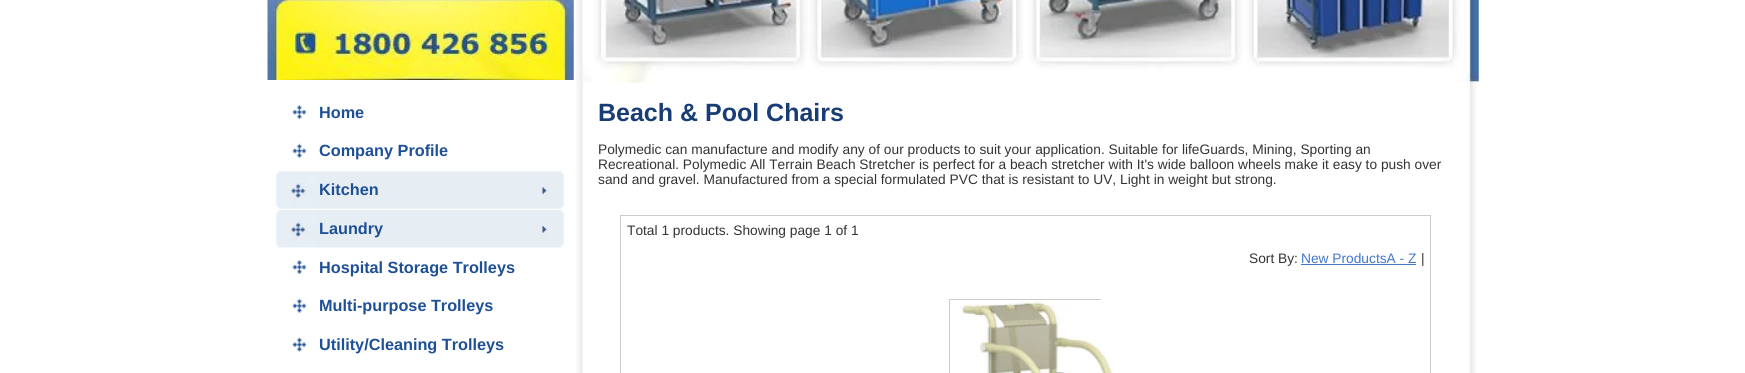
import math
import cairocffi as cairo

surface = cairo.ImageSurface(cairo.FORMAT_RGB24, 1745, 373)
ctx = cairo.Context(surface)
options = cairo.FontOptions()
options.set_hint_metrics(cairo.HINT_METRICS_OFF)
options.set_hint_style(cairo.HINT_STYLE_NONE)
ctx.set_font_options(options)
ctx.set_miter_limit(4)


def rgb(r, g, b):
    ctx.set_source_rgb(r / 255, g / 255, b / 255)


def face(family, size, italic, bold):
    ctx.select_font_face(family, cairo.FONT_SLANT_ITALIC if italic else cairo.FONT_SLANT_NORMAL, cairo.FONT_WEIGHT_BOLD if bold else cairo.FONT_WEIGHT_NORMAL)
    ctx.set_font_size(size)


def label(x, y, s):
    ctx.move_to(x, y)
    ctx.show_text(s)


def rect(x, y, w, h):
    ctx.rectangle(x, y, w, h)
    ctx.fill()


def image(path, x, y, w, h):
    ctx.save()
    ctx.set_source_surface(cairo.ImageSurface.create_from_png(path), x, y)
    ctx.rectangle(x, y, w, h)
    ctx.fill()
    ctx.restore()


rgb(255, 255, 255)
ctx.paint()
image('image0.png', 576, 0, 900, 373)
image('image1.png', 267, 0, 307, 80)
image('image2.png', 292, 105, 15, 14)
face('Liberation Sans', 16.25, 0, 1)
rgb(30, 80, 150)
label(319, 118, 'Home')
image('image3.png', 292, 143, 15, 15)
label(319, 156, 'Company Profile')
image('image4.png', 276, 171, 288, 38)
label(319, 195, 'Kitchen')
image('image5.png', 276, 210, 288, 38)
label(319, 234, 'Laundry')
image('image2.png', 292, 260, 15, 14)
label(319, 273, 'Hospital Storage Trolleys')
image('image3.png', 292, 298, 15, 15)
label(319, 311, 'Multi-purpose Trolleys')
image('image6.png', 292, 337, 15, 15)
label(319, 350, 'Utility/Cleaning Trolleys')
image('image7.png', 582, 0, 897, 83)
face('Liberation Sans', 25, 0, 1)
rgb(24, 60, 116)
label(598, 121, 'Beach & Pool Chairs')
face('Liberation Sans', 13.75, 0, 0)
rgb(51, 51, 51)
label(598, 154, 'Polymedic can manufacture and modify any of our products to suit your application. Suitable for lifeGuards, Mining, Sporting an')
label(598, 169, 'Recreational. Polymedic All Terrain Beach Stretcher is perfect for a beach stretcher with It\'s wide balloon wheels make it easy to push over')
label(598, 184, 'sand and gravel. Manufactured from a special formulated PVC that is resistant to UV, Light in weight but strong.')
ctx.rectangle(620.5, 215.5, 810, 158)
rgb(204, 204, 204)
ctx.set_line_width(1)
ctx.stroke()
rgb(51, 51, 51)
label(627, 235, 'Total 1 products. Showing page 1 of 1')
label(1249, 263, 'Sort By:')
rgb(64, 119, 205)
label(1301, 263, 'New ProductsA - Z')
rect(1301, 264, 115, 1)
rgb(51, 51, 51)
label(1421, 263, '|')
ctx.rectangle(949.5, 299.5, 151, 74)
rgb(204, 204, 204)
ctx.stroke()
image('image8.png', 960, 300, 153, 73)
surface.write_to_png('render.png')
